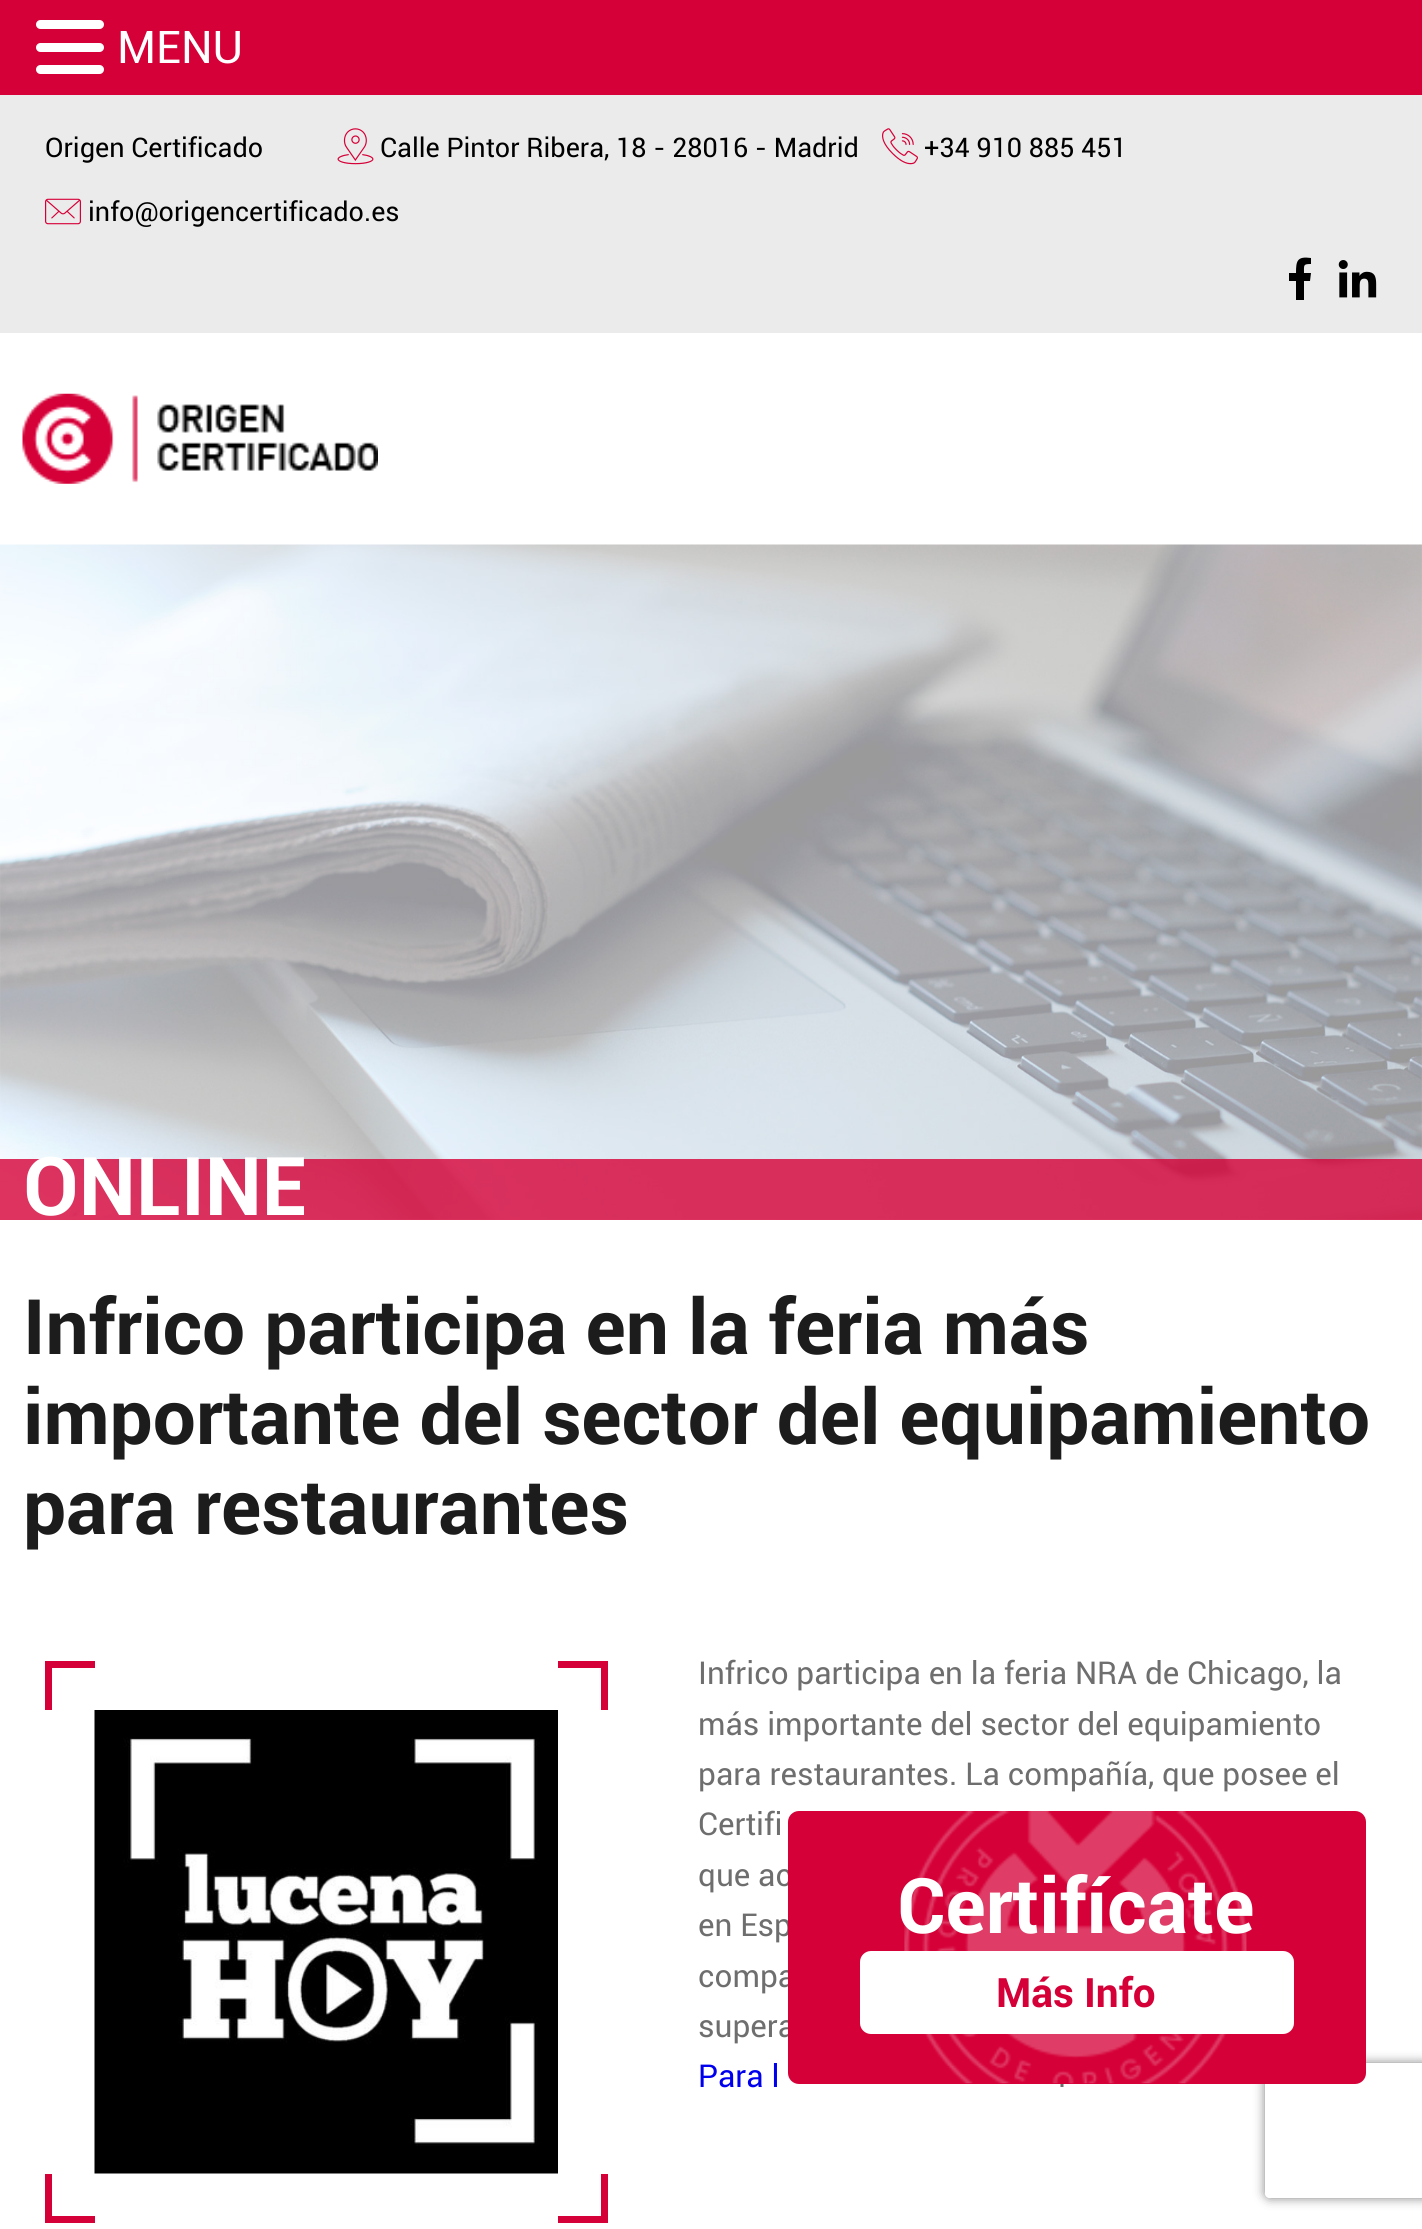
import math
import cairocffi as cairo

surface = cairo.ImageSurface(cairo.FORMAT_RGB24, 1422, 2229)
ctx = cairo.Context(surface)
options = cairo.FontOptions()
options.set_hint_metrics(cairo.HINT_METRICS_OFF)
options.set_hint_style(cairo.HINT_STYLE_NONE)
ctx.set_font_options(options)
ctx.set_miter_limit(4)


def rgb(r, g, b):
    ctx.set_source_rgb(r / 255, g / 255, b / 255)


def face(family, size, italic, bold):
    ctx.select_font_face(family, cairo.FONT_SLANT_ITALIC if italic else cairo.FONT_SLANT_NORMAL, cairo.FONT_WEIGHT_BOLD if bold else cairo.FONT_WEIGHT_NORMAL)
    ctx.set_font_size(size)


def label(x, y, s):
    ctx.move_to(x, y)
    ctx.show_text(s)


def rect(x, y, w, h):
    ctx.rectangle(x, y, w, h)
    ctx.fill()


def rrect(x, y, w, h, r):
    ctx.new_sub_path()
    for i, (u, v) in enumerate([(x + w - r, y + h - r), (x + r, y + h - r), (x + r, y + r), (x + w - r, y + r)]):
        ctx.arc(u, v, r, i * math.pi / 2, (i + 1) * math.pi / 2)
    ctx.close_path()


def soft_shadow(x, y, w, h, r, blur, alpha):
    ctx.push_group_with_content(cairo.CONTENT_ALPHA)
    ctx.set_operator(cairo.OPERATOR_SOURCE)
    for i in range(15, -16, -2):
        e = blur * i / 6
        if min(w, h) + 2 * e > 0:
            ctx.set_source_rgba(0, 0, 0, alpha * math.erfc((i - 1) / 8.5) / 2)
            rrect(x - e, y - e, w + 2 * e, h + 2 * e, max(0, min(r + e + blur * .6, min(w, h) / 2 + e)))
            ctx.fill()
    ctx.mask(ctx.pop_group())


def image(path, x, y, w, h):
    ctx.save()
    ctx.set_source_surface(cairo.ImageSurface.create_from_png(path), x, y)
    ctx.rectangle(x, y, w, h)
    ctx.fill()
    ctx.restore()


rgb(255, 255, 255)
ctx.paint()
rgb(213, 0, 55)
rect(0, 0, 1422, 95)
rgb(255, 255, 255)
rrect(36, 20, 68, 9, 4.5)
ctx.fill()
rrect(36, 43, 68, 9, 4.5)
ctx.fill()
rrect(36, 65, 68, 9, 4.5)
ctx.fill()
face('Roboto', 45, 0, 0)
label(117, 63, 'MENU')
rgb(235, 235, 235)
rect(0, 95, 1422, 238)
face('Roboto', 27, 0, 0)
rgb(0, 0, 0)
label(45, 157, 'Origen Certificado')
image('image0.png', 337, 128, 37, 37)
label(380, 157, 'Calle Pintor Ribera, 18 - 28016 - Madrid')
image('image1.png', 882, 128, 36, 37)
label(924, 157, '+34 910 885 451')
image('image2.png', 45, 198, 36, 27)
label(88, 221, 'info@origencertificado.es')
ctx.new_path()
ctx.move_to(1296, 300)
ctx.line_to(1296, 281)
ctx.line_to(1289, 281)
ctx.line_to(1289, 273)
ctx.line_to(1296, 273)
ctx.curve_to(1296, 261, 1297, 256, 1311, 258)
ctx.line_to(1311, 264)
ctx.curve_to(1303, 264, 1304, 265, 1304, 273)
ctx.line_to(1311, 273)
ctx.line_to(1310, 281)
ctx.line_to(1304, 281)
ctx.line_to(1304, 300)
ctx.close_path()
ctx.fill()
image('image3.png', 1338, 260, 39, 38)
image('image4.png', 22, 393, 356, 91)
face('Roboto', 31.5, 0, 0)
rgb(110, 110, 110)
label(698, 1886, 'que ac')
label(698, 1936, 'en Esp')
label(698, 1987, 'compa')
label(698, 2037, 'supera')
label(1058, 2087, '.')
ctx.save()
ctx.set_fill_rule(cairo.FILL_RULE_EVEN_ODD)
ctx.new_path()
ctx.move_to(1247, 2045)
ctx.line_to(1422, 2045)
ctx.line_to(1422, 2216)
ctx.line_to(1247, 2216)
ctx.close_path()
ctx.move_to(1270, 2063)
ctx.line_to(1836, 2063)
ctx.curve_to(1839, 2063, 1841, 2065, 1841, 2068)
ctx.line_to(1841, 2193)
ctx.curve_to(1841, 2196, 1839, 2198, 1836, 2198)
ctx.line_to(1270, 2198)
ctx.curve_to(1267, 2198, 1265, 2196, 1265, 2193)
ctx.line_to(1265, 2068)
ctx.curve_to(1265, 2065, 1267, 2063, 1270, 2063)
ctx.close_path()
ctx.clip()
rgb(128, 128, 128)
soft_shadow(1265, 2063, 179, 135, 5, 5.5, 1)
ctx.restore()
rgb(213, 0, 55)
rrect(788, 1811, 578, 273, 11)
ctx.fill()
image('image5.png', 904, 1811, 343, 273)
face('Roboto', 76.5, 0, 1)
rgb(255, 255, 255)
label(897, 1933, 'Certifícate')
rrect(861, 1952, 432, 81, 10)
ctx.fill_preserve()
ctx.stroke()
face('Roboto', 40.5, 0, 1)
rgb(213, 0, 55)
label(996, 2007, 'Más Info')
image('image6.png', 0, 544, 1422, 676)
ctx.set_source_rgba(0.835, 0, 0.216, 0.8)
rect(0, 1159, 1422, 61)
face('Roboto', 81, 0, 1)
rgb(255, 255, 255)
label(23, 1215, 'ONLINE')
face('Roboto', 76.5, 0, 1)
rgb(28, 28, 28)
label(23, 1354, 'Infrico participa en la feria más')
label(23, 1444, 'importante del sector del equipamiento')
label(23, 1534, 'para restaurantes')
ctx.rectangle(48.5, 1664.5, 556, 555)
rgb(213, 0, 55)
ctx.set_line_width(7)
ctx.stroke()
rgb(255, 255, 255)
rect(95, 1661, 463, 562)
rect(45, 1710, 563, 464)
image('image7.png', 94, 1710, 464, 464)
face('Roboto', 31.5, 0, 0)
rgb(110, 110, 110)
label(698, 1684, 'Infrico participa en la feria NRA de Chicago, la')
label(698, 1735, 'más importante del sector del equipamiento')
label(698, 1785, 'para restaurantes. La compañía, que posee el')
label(698, 1835, 'Certifi')
rgb(0, 0, 238)
label(698, 2087, 'Para l')
surface.write_to_png('render.png')
